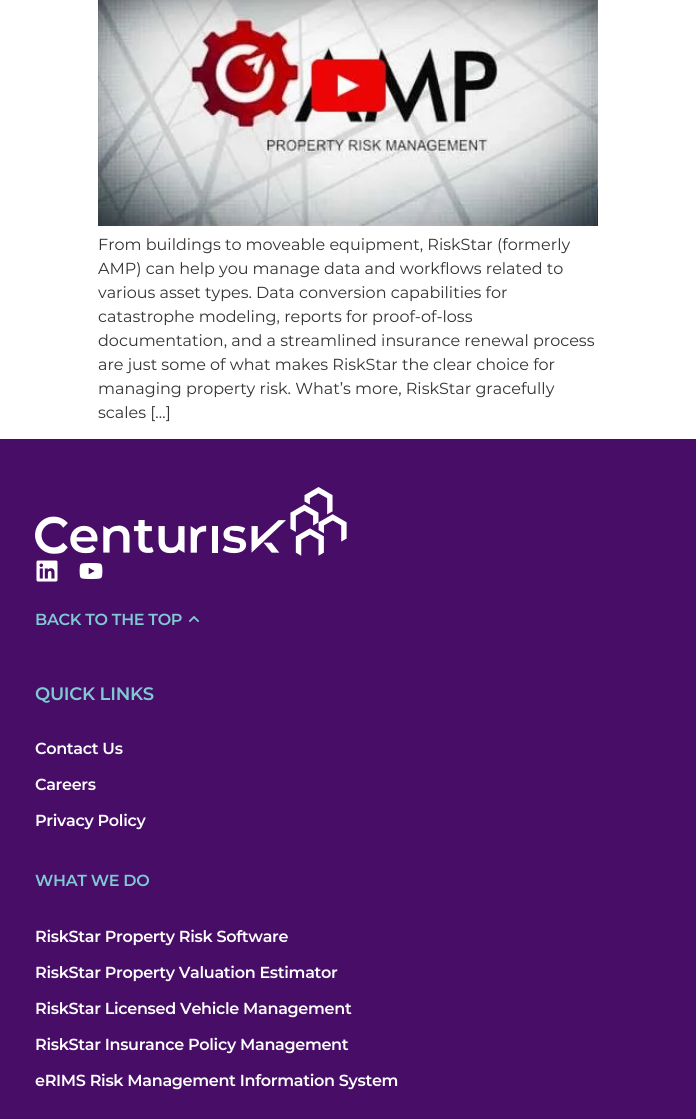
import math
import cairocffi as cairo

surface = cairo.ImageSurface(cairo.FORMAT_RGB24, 696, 1119)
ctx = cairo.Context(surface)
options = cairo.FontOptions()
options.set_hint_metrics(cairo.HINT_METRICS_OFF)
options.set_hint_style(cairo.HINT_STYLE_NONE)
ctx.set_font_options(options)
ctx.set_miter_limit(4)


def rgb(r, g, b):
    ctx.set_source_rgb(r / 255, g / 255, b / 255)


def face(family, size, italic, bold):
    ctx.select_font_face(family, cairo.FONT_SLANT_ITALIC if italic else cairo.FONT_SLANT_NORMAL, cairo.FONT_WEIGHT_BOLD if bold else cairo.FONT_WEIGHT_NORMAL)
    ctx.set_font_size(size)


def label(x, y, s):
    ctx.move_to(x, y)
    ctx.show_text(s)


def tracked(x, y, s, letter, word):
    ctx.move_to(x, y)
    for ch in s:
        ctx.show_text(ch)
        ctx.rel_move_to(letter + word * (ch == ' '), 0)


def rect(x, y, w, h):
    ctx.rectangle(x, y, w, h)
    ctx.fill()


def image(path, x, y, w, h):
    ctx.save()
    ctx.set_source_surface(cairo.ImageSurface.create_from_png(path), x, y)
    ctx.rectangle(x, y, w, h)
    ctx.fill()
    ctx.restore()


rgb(255, 255, 255)
ctx.paint()
image('image0.png', 98, 0, 500, 226)
face('Montserrat', 16, 0, 0)
rgb(51, 51, 51)
label(98, 250, 'From buildings to moveable equipment, RiskStar (formerly')
label(98, 274, 'AMP) can help you manage data and workflows related to')
label(98, 298, 'various asset types. Data conversion capabilities for')
label(98, 322, 'catastrophe modeling, reports for proof-of-loss')
label(98, 346, 'documentation, and a streamlined insurance renewal process')
label(98, 370, 'are just some of what makes RiskStar the clear choice for')
label(98, 394, 'managing property risk. What’s more, RiskStar gracefully')
label(98, 418, 'scales […]')
rgb(72, 13, 103)
rect(0, 439, 696, 680)
image('image1.png', 35, 487, 312, 69)
image('image2.png', 36, 560, 22, 22)
image('image3.png', 79, 563, 24, 16)
face('Montserrat SemiBold', 16, 0, 0)
rgb(127, 201, 210)
tracked(35, 625, 'BACK TO THE TOP', -0.3, 0)
image('image4.png', 189, 616, 10, 6)
face('Montserrat SemiBold', 18, 0, 0)
tracked(35, 700, 'QUICK LINKS', -0.25, 0)
face('Montserrat SemiBold', 16, 0, 0)
rgb(255, 255, 255)
tracked(35, 754, 'Contact Us', -0.3, 0)
tracked(35, 790, 'Careers', -0.3, 0)
tracked(35, 826, 'Privacy Policy', -0.3, 0)
rgb(127, 201, 210)
tracked(35, 886, 'WHAT WE DO', -0.3, 0)
rgb(255, 255, 255)
tracked(35, 942, 'RiskStar Property Risk Software', -0.3, 0)
tracked(35, 978, 'RiskStar Property Valuation Estimator', -0.3, 0)
tracked(35, 1014, 'RiskStar Licensed Vehicle Management', -0.3, 0)
tracked(35, 1050, 'RiskStar Insurance Policy Management', -0.3, 0)
tracked(35, 1086, 'eRIMS Risk Management Information System', -0.3, 0)
surface.write_to_png('render.png')
